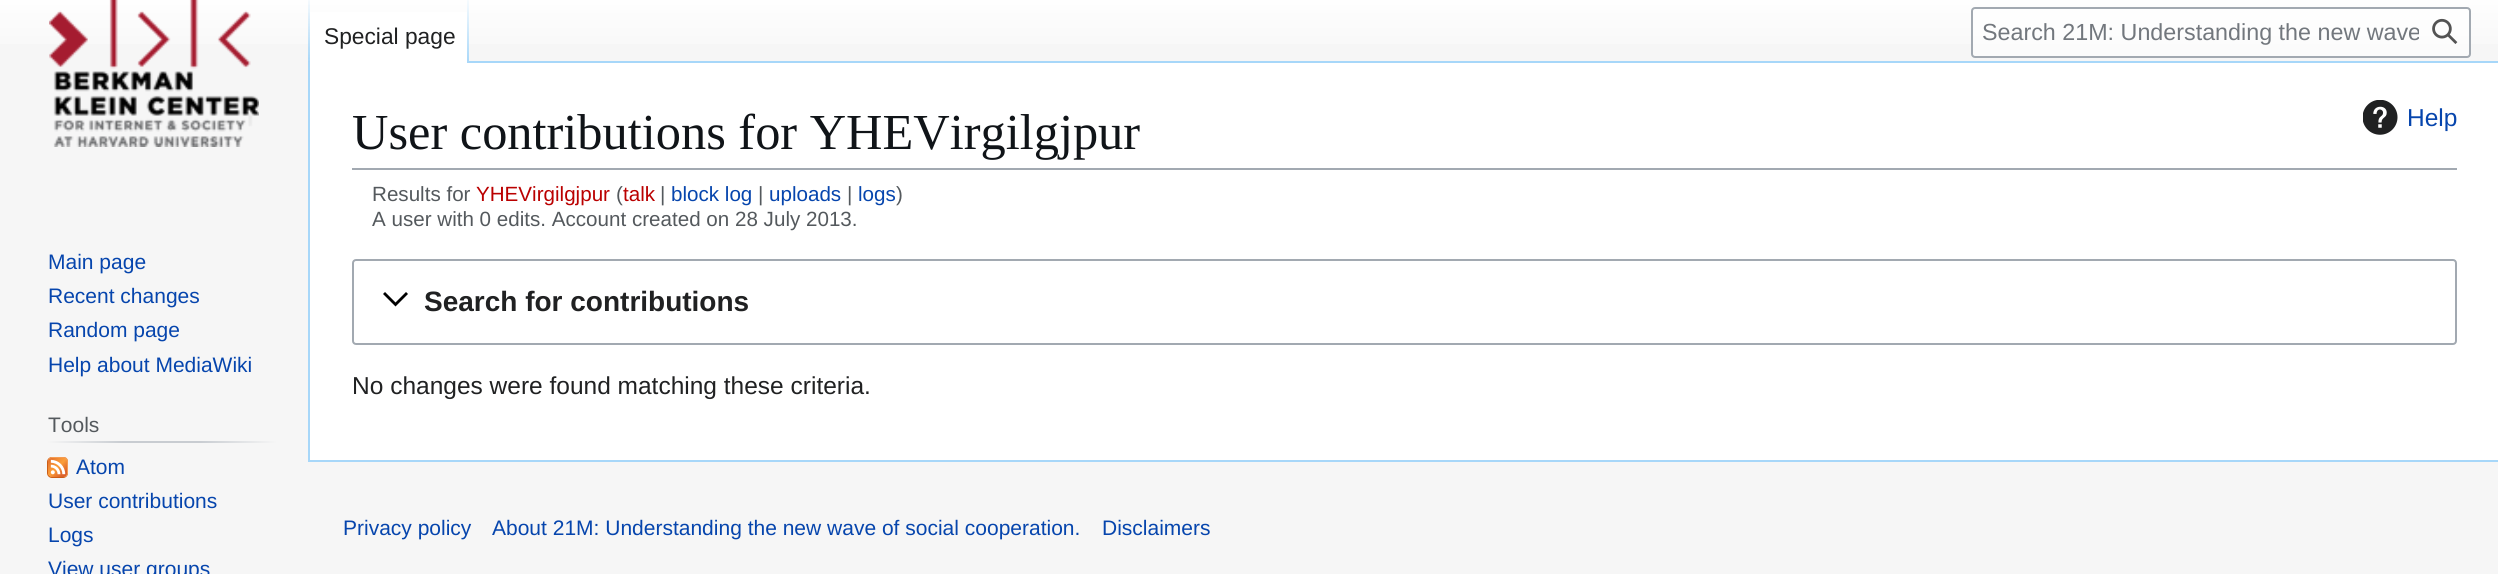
import math
import cairocffi as cairo

surface = cairo.ImageSurface(cairo.FORMAT_RGB24, 2498, 574)
ctx = cairo.Context(surface)
options = cairo.FontOptions()
options.set_hint_metrics(cairo.HINT_METRICS_OFF)
options.set_hint_style(cairo.HINT_STYLE_NONE)
ctx.set_font_options(options)
ctx.set_miter_limit(4)


def rgb(r, g, b):
    ctx.set_source_rgb(r / 255, g / 255, b / 255)


def face(family, size, italic, bold):
    ctx.select_font_face(family, cairo.FONT_SLANT_ITALIC if italic else cairo.FONT_SLANT_NORMAL, cairo.FONT_WEIGHT_BOLD if bold else cairo.FONT_WEIGHT_NORMAL)
    ctx.set_font_size(size)


def label(x, y, s):
    ctx.move_to(x, y)
    ctx.show_text(s)


def rect(x, y, w, h):
    ctx.rectangle(x, y, w, h)
    ctx.fill()


def rrect(x, y, w, h, r):
    ctx.new_sub_path()
    for i, (u, v) in enumerate([(x + w - r, y + h - r), (x + r, y + h - r), (x + r, y + r), (x + w - r, y + r)]):
        ctx.arc(u, v, r, i * math.pi / 2, (i + 1) * math.pi / 2)
    ctx.close_path()


def image(path, x, y, w, h):
    ctx.save()
    ctx.set_source_surface(cairo.ImageSurface.create_from_png(path), x, y)
    ctx.rectangle(x, y, w, h)
    ctx.fill()
    ctx.restore()


rgb(246, 246, 246)
ctx.paint()
gradient = cairo.LinearGradient(1250, -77, 1250, 63)
gradient.add_color_stop_rgba(0.5, 1, 1, 1, 1)
gradient.add_color_stop_rgba(1, 0.965, 0.965, 0.965, 1)
ctx.set_source(gradient)
rect(0, 0, 2498, 44)
rgb(167, 215, 249)
rect(308, 460, 2190, 2)
rect(308, 61, 2, 401)
gradient = cairo.LinearGradient(309, -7, 309, 63)
gradient.add_color_stop_rgba(0, 0.655, 0.843, 0.976, 0)
gradient.add_color_stop_rgba(1, 0.655, 0.843, 0.976, 1)
ctx.set_source(gradient)
rect(308, 0, 2, 63)
rgb(255, 255, 255)
rect(310, 12, 157, 51)
gradient = cairo.LinearGradient(468, -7, 468, 63)
gradient.add_color_stop_rgba(0, 1, 1, 1, 1)
gradient.add_color_stop_rgba(1, 0.655, 0.843, 0.976, 1)
ctx.set_source(gradient)
rect(467, 0, 2, 63)
face('Liberation Sans', 22.75, 0, 0)
rgb(32, 33, 34)
label(324, 44, 'Special page')
ctx.set_source_rgba(1, 1, 1, 0.5)
rrect(1972, 8, 498, 49, 3)
ctx.fill_preserve()
rgb(162, 169, 177)
ctx.stroke()
ctx.save()
ctx.rectangle(1983, 19, 436, 27)
ctx.clip()
face('Liberation Sans', 23.3, 0, 0)
rgb(114, 119, 125)
label(1982, 40, 'Search 21M: Understanding the new wave')
ctx.restore()
image('image0.png', 2432, 18, 26, 26)
image('image1.png', 49, 0, 210, 147)
face('Liberation Sans', 21, 0, 0)
rgb(6, 69, 173)
label(48, 269, 'Main page')
label(48, 303, 'Recent changes')
label(48, 337, 'Random page')
label(48, 372, 'Help about MediaWiki')
gradient = cairo.LinearGradient(47, 442, 277, 442)
gradient.add_color_stop_rgba(0, 0.965, 0.965, 0.965, 1)
gradient.add_color_stop_rgba(0.33, 0.784, 0.8, 0.82, 1)
gradient.add_color_stop_rgba(0.66, 0.784, 0.8, 0.82, 1)
gradient.add_color_stop_rgba(1, 0.965, 0.965, 0.965, 1)
ctx.set_source(gradient)
rect(47, 441, 230, 2)
rgb(84, 89, 93)
label(48, 432, 'Tools')
image('image2.png', 47, 457, 21, 21)
rgb(6, 69, 173)
label(76, 474, 'Atom')
label(48, 508, 'User contributions')
label(48, 542, 'Logs')
label(48, 576, 'View user groups')
rgb(255, 255, 255)
rect(310, 63, 2188, 397)
rgb(167, 215, 249)
rect(469, 61, 2029, 2)
rgb(162, 169, 177)
rect(352, 168, 2105, 2)
face('Liberation Serif', 50.4, 0, 0)
rgb(16, 20, 24)
label(352, 149, 'User contributions for YHEVirgilgjpur')
image('image3.png', 2363, 100, 35, 35)
face('Liberation Sans', 24.5, 0, 0)
rgb(6, 69, 173)
label(2407, 126, 'Help')
face('Liberation Sans', 20.6, 0, 0)
rgb(84, 89, 93)
label(372, 201, 'Results for')
rgb(186, 0, 0)
label(476, 201, 'YHEVirgilgjpur')
rgb(84, 89, 93)
label(616, 201, '(')
rgb(186, 0, 0)
label(623, 201, 'talk')
rgb(84, 89, 93)
label(660, 201, '|')
rgb(6, 69, 173)
label(671, 201, 'block log')
rgb(84, 89, 93)
label(758, 201, '|')
rgb(6, 69, 173)
label(769, 201, 'uploads')
rgb(84, 89, 93)
label(847, 201, '|')
rgb(6, 69, 173)
label(858, 201, 'logs')
rgb(84, 89, 93)
label(896, 201, ')')
label(372, 226, 'A user with 0 edits. Account created on 28 July 2013.')
rrect(353, 260, 2103, 84, 3)
rgb(162, 169, 177)
ctx.stroke()
rgb(0, 0, 0)
ctx.new_path()
ctx.move_to(406, 292)
ctx.line_to(395.5, 302.5)
ctx.line_to(385, 292)
ctx.line_to(383, 294)
ctx.line_to(395.5, 306.5)
ctx.line_to(408, 294)
ctx.close_path()
ctx.fill()
face('Liberation Sans', 28, 0, 1)
rgb(32, 33, 34)
label(424, 311, 'Search for contributions')
face('Liberation Sans', 24.5, 0, 0)
label(352, 394, 'No changes were found matching these criteria.')
face('Liberation Sans', 21, 0, 0)
rgb(6, 69, 173)
label(343, 535, 'Privacy policy')
label(492, 535, 'About 21M: Understanding the new wave of social cooperation.')
label(1102, 535, 'Disclaimers')
surface.write_to_png('render.png')
